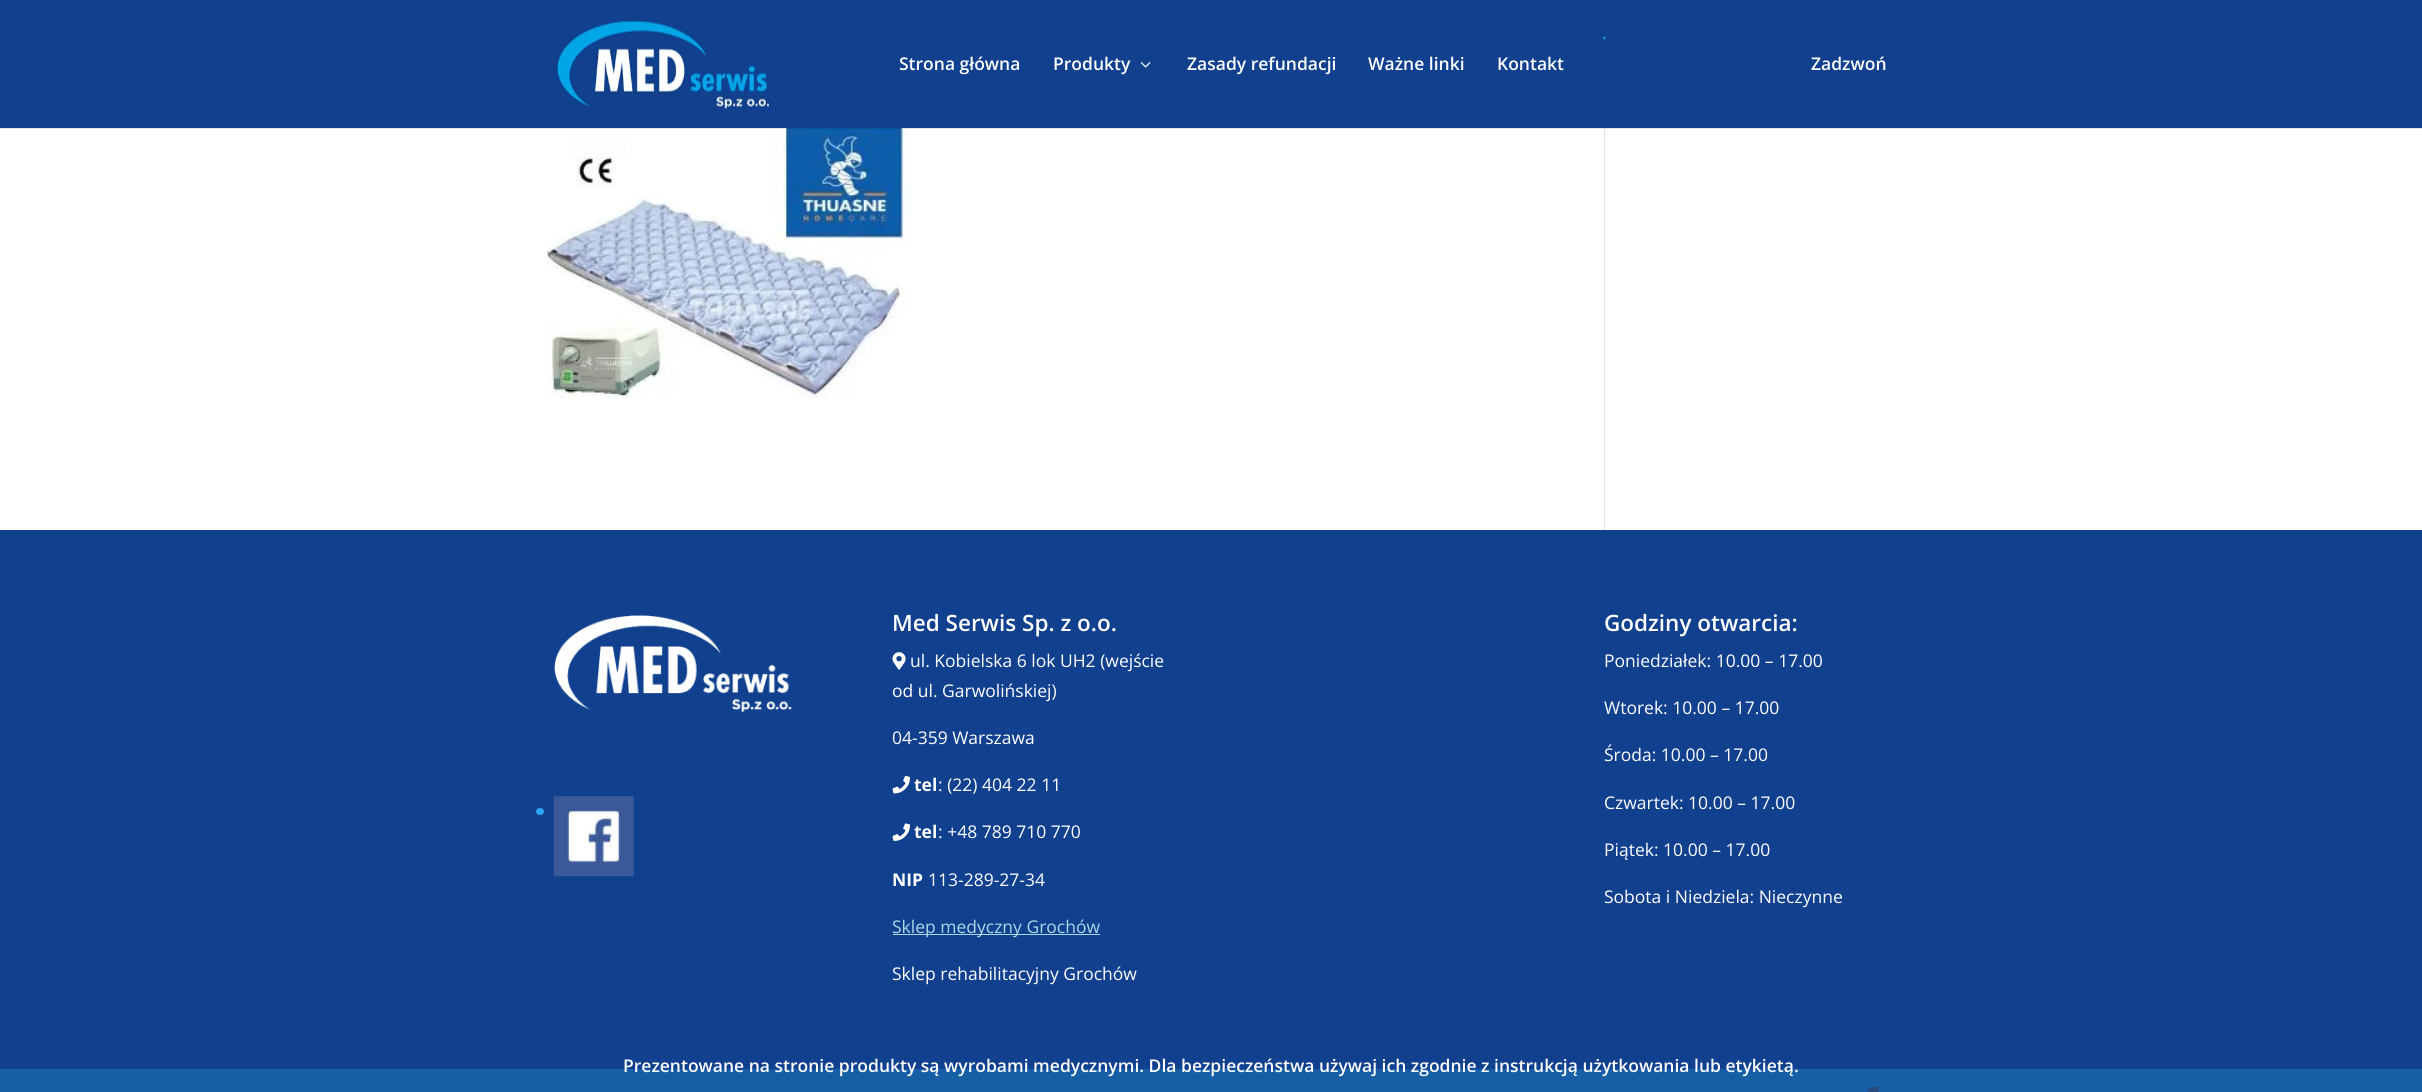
import math
import cairocffi as cairo

surface = cairo.ImageSurface(cairo.FORMAT_RGB24, 2422, 1092)
ctx = cairo.Context(surface)
options = cairo.FontOptions()
options.set_hint_metrics(cairo.HINT_METRICS_OFF)
options.set_hint_style(cairo.HINT_STYLE_NONE)
ctx.set_font_options(options)
ctx.set_miter_limit(4)


def rgb(r, g, b):
    ctx.set_source_rgb(r / 255, g / 255, b / 255)


def face(family, size, italic, bold):
    ctx.select_font_face(family, cairo.FONT_SLANT_ITALIC if italic else cairo.FONT_SLANT_NORMAL, cairo.FONT_WEIGHT_BOLD if bold else cairo.FONT_WEIGHT_NORMAL)
    ctx.set_font_size(size)


def label(x, y, s):
    ctx.move_to(x, y)
    ctx.show_text(s)


def rect(x, y, w, h):
    ctx.rectangle(x, y, w, h)
    ctx.fill()


def rrect(x, y, w, h, r):
    ctx.new_sub_path()
    for i, (u, v) in enumerate([(x + w - r, y + h - r), (x + r, y + h - r), (x + r, y + r), (x + w - r, y + r)]):
        ctx.arc(u, v, r, i * math.pi / 2, (i + 1) * math.pi / 2)
    ctx.close_path()


def image(path, x, y, w, h):
    ctx.save()
    ctx.set_source_surface(cairo.ImageSurface.create_from_png(path), x, y)
    ctx.rectangle(x, y, w, h)
    ctx.fill()
    ctx.restore()


rgb(255, 255, 255)
ctx.paint()
image('image2.png', 546, 128, 365, 270)
rgb(226, 226, 226)
rect(1604, 128, 1, 402)
ctx.set_source_rgba(0, 0, 0, 0.1)
ctx.new_path()
ctx.move_to(0, 128)
ctx.line_to(0, 129)
ctx.line_to(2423, 129)
ctx.line_to(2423, 1)
ctx.line_to(2422, 1)
ctx.line_to(2422, 128)
ctx.close_path()
ctx.fill()
rgb(17, 64, 142)
rect(0, 0, 2422, 128)
image('image0.png', 556, 18, 216, 91)
face('Open Sans SemiBold', 17.5, 0, 0)
rgb(7, 169, 208)
label(1602, 39, '.')
rgb(255, 255, 255)
label(899, 70, 'Strona główna')
label(1053, 70, 'Produkty')
image('image1.png', 1141, 62, 10, 6)
label(1187, 70, 'Zasady refundacji')
label(1368, 70, 'Ważne linki')
label(1497, 70, 'Kontakt')
label(1811, 70, 'Zadzwoń')
rgb(17, 64, 142)
rect(0, 530, 2422, 539)
image('image3.png', 554, 615, 238, 97)
rgb(46, 163, 242)
rrect(536, 808, 8, 7, 3.5)
ctx.fill()
image('image4.png', 553, 796, 81, 81)
face('Open Sans SemiBold', 22.5, 0, 0)
rgb(255, 255, 255)
label(892, 631, 'Med Serwis Sp. z o.o.')
image('image5.png', 892, 652, 14, 18)
face('Open Sans', 17.5, 0, 0)
label(910, 667, 'ul. Kobielska 6 lok UH2 (wejście')
label(892, 697, 'od ul. Garwolińskiej)')
label(892, 744, '04-359 Warszawa')
image('image6.png', 892, 776, 18, 18)
face('Open Sans', 17.5, 0, 1)
label(914, 791, 'tel')
face('Open Sans', 17.5, 0, 0)
label(938, 791, ': (22) 404 22 11')
image('image7.png', 892, 823, 18, 18)
face('Open Sans', 17.5, 0, 1)
label(914, 838, 'tel')
face('Open Sans', 17.5, 0, 0)
label(938, 838, ': +48 789 710 770')
face('Open Sans', 17.5, 0, 1)
label(892, 886, 'NIP')
face('Open Sans', 17.5, 0, 0)
label(928, 886, '113-289-27-34')
rgb(173, 216, 230)
rect(893, 934, 207, 1)
label(892, 933, 'Sklep medyczny Grochów')
rgb(255, 255, 255)
label(892, 980, 'Sklep rehabilitacyjny Grochów')
face('Open Sans SemiBold', 22.5, 0, 0)
label(1604, 631, 'Godziny otwarcia:')
face('Open Sans', 17.5, 0, 0)
label(1604, 667, 'Poniedziałek: 10.00 – 17.00')
label(1604, 714, 'Wtorek: 10.00 – 17.00')
label(1604, 761, 'Środa: 10.00 – 17.00')
label(1604, 809, 'Czwartek: 10.00 – 17.00')
label(1604, 856, 'Piątek: 10.00 – 17.00')
label(1604, 903, 'Sobota i Niedziela: Nieczynne')
rgb(22, 94, 166)
rect(0, 1069, 2422, 23)
image('image8.png', 1867, 1086, 12, 6)
face('Open Sans SemiBold', 17.5, 0, 0)
rgb(255, 255, 255)
label(623, 1072, 'Prezentowane na stronie produkty są wyrobami medycznymi. Dla bezpieczeństwa używaj ich zgodnie z instrukcją użytkowania lub etykietą.')
surface.write_to_png('render.png')
